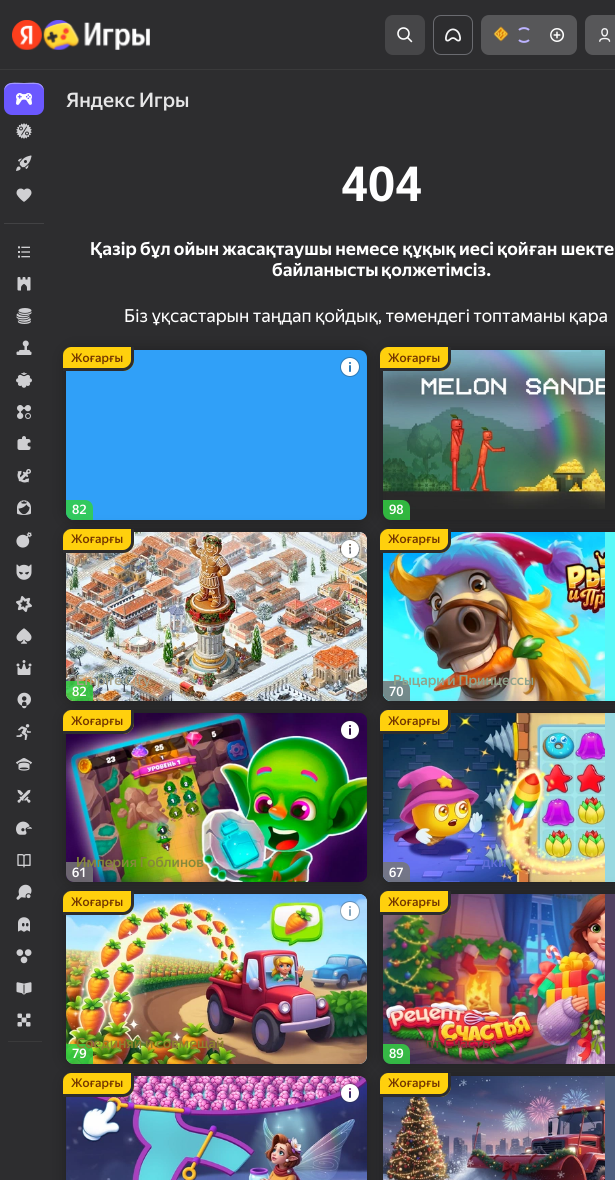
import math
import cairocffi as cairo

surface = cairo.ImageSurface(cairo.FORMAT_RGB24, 615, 1180)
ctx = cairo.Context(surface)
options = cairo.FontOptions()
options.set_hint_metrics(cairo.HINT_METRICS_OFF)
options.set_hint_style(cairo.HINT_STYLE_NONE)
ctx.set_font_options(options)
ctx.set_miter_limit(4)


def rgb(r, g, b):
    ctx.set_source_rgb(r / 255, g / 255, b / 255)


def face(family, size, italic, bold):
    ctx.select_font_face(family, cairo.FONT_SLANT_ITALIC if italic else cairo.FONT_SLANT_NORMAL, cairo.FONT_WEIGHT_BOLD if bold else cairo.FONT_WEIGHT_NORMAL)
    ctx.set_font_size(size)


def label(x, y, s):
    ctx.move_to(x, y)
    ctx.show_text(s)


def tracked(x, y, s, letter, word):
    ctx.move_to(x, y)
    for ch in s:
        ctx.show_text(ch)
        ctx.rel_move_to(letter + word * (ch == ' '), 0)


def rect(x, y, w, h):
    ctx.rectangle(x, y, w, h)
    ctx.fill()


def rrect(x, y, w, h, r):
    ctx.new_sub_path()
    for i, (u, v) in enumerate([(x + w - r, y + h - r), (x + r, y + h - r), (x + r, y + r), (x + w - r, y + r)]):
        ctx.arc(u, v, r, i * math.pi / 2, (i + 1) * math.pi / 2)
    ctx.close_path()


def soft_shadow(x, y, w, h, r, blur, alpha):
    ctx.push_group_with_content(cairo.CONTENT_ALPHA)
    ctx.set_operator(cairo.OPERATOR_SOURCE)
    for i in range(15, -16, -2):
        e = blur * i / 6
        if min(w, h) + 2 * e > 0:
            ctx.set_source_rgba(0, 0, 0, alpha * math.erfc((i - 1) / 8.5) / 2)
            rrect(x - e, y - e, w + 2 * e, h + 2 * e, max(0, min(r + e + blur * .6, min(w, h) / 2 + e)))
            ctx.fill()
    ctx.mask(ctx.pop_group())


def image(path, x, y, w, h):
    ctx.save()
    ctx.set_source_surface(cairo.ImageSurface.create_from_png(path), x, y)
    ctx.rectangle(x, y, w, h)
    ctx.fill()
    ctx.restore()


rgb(45, 45, 47)
ctx.paint()
rgb(58, 58, 59)
rect(0, 69, 615, 1)
image('image0.png', 12, 20, 138, 30)
rgb(70, 70, 72)
rrect(385, 15, 40, 40, 8)
ctx.fill()
image('image1.png', 397, 27, 16, 16)
rrect(433.5, 15.5, 39, 39, 7.5)
rgb(106, 107, 112)
ctx.set_line_width(1)
ctx.stroke()
image('image2.png', 445, 28, 16, 14)
rgb(87, 87, 89)
rrect(481, 15, 96, 40, 8)
ctx.fill()
image('image3.png', 493, 26, 16, 16)
ctx.new_path()
ctx.move_to(519, 30)
ctx.curve_to(521.5, 27.5, 526.5, 27.5, 529, 30)
ctx.move_to(529, 40)
ctx.curve_to(526.5, 42.5, 521.5, 42.5, 519, 40)
rgb(188, 179, 255)
ctx.set_line_width(2)
ctx.stroke()
image('image4.png', 550, 28, 15, 14)
rgb(87, 87, 89)
rrect(585, 15, 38, 40, 8)
ctx.fill()
image('image5.png', 599, 28, 12, 14)
rgb(107, 88, 255)
rrect(4, 83, 40, 32, 8)
ctx.fill()
rgb(163, 152, 255)
ctx.new_path()
ctx.move_to(12, 84)
ctx.curve_to(8, 84, 4, 88, 4, 92)
ctx.curve_to(4, 80, 16, 83, 24, 83)
ctx.curve_to(32, 83, 44, 80, 44, 92)
ctx.curve_to(44, 88, 40, 84, 36, 84)
ctx.close_path()
ctx.fill()
image('image6.png', 16, 93, 16, 12)
image('image7.png', 16, 123, 16, 16)
image('image8.png', 16, 155, 16, 16)
image('image9.png', 16, 188, 16, 14)
rgb(66, 66, 68)
rect(4, 223, 40, 1)
image('image10.png', 18, 246, 12, 12)
image('image11.png', 17, 277, 14, 14)
image('image12.png', 16, 308, 16, 16)
image('image13.png', 16, 340, 16, 15)
image('image14.png', 16, 372, 16, 16)
image('image15.png', 17, 405, 14, 14)
image('image16.png', 17, 436, 14, 14)
image('image17.png', 17, 469, 14, 14)
image('image18.png', 17, 500, 14, 15)
image('image19.png', 16, 532, 16, 16)
image('image20.png', 16, 564, 16, 16)
image('image21.png', 16, 596, 16, 16)
image('image22.png', 16, 628, 16, 16)
image('image23.png', 16, 660, 16, 15)
image('image24.png', 17, 692, 14, 17)
image('image25.png', 16, 724, 15, 16)
image('image26.png', 16, 758, 16, 13)
image('image27.png', 17, 789, 14, 14)
image('image28.png', 16, 821, 16, 14)
image('image29.png', 17, 854, 14, 14)
image('image30.png', 16, 884, 16, 16)
image('image31.png', 18, 917, 12, 15)
image('image32.png', 16, 949, 16, 15)
image('image33.png', 16, 982, 16, 13)
image('image34.png', 17, 1013, 14, 14)
rgb(0, 0, 0)
soft_shadow(66, 350, 301, 170, 8, 8, 0.3)
rgb(48, 160, 248)
rrect(66, 350, 301, 170, 8)
ctx.fill()
ctx.set_source_rgba(0.2, 0.816, 0.263, 0.85)
ctx.new_path()
ctx.move_to(66, 500)
ctx.line_to(85, 500)
ctx.curve_to(89.5, 500, 93, 503.5, 93, 508)
ctx.line_to(93, 520)
ctx.line_to(74, 520)
ctx.curve_to(69.5, 520, 66, 516.5, 66, 512)
ctx.close_path()
ctx.fill()
image('image35.png', 340, 357, 20, 20)
rgb(0, 0, 0)
soft_shadow(383, 350, 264, 170, 8, 8, 0.3)
rgb(40, 40, 40)
rrect(383, 350, 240, 170, 8)
ctx.fill()
image('image36.png', 383, 350, 222, 159)
ctx.set_source_rgba(0.2, 0.816, 0.263, 0.85)
ctx.new_path()
ctx.move_to(383, 500)
ctx.line_to(402, 500)
ctx.curve_to(406.5, 500, 410, 503.5, 410, 508)
ctx.line_to(410, 520)
ctx.line_to(391, 520)
ctx.curve_to(386.5, 520, 383, 516.5, 383, 512)
ctx.close_path()
ctx.fill()
rgb(0, 0, 0)
soft_shadow(66, 532, 301, 169, 8, 8, 0.3)
rgb(232, 240, 248)
rrect(66, 532, 301, 169, 8)
ctx.fill()
image('image37.png', 66, 532, 301, 169)
image('image38.png', 340, 539, 20, 20)
rgb(0, 0, 0)
soft_shadow(383, 532, 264, 169, 8, 8, 0.3)
ctx.set_source_rgba(0.2, 0.816, 0.263, 0.85)
ctx.new_path()
ctx.move_to(66, 681)
ctx.line_to(85, 681)
ctx.curve_to(89.5, 681, 93, 684.5, 93, 689)
ctx.line_to(93, 701)
ctx.line_to(74, 701)
ctx.curve_to(69.5, 701, 66, 697.5, 66, 693)
ctx.close_path()
ctx.fill()
rgb(88, 248, 248)
rrect(383, 532, 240, 169, 8)
ctx.fill()
image('image39.png', 383, 532, 222, 169)
ctx.set_source_rgba(0.467, 0.467, 0.467, 0.85)
ctx.new_path()
ctx.move_to(383, 681)
ctx.line_to(402, 681)
ctx.curve_to(406.5, 681, 410, 684.5, 410, 689)
ctx.line_to(410, 701)
ctx.line_to(391, 701)
ctx.curve_to(386.5, 701, 383, 697.5, 383, 693)
ctx.close_path()
ctx.fill()
rgb(0, 0, 0)
soft_shadow(66, 713, 301, 169, 8, 8, 0.3)
rgb(40, 8, 72)
rrect(66, 713, 301, 169, 8)
ctx.fill()
image('image40.png', 66, 713, 301, 169)
ctx.set_source_rgba(0.467, 0.467, 0.467, 0.85)
ctx.new_path()
ctx.move_to(66, 862)
ctx.line_to(85, 862)
ctx.curve_to(89.5, 862, 93, 865.5, 93, 870)
ctx.line_to(93, 882)
ctx.line_to(74, 882)
ctx.curve_to(69.5, 882, 66, 878.5, 66, 874)
ctx.close_path()
ctx.fill()
image('image41.png', 340, 720, 20, 20)
rgb(0, 0, 0)
soft_shadow(383, 713, 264, 169, 8, 8, 0.3)
rgb(152, 216, 224)
rrect(383, 713, 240, 169, 8)
ctx.fill()
image('image42.png', 383, 713, 222, 169)
ctx.set_source_rgba(0.467, 0.467, 0.467, 0.85)
ctx.new_path()
ctx.move_to(383, 862)
ctx.line_to(402, 862)
ctx.curve_to(406.5, 862, 410, 865.5, 410, 870)
ctx.line_to(410, 882)
ctx.line_to(391, 882)
ctx.curve_to(386.5, 882, 383, 878.5, 383, 874)
ctx.close_path()
ctx.fill()
rgb(0, 0, 0)
soft_shadow(66, 894, 301, 170, 8, 8, 0.3)
rgb(58, 58, 59)
rect(8, 1041, 34, 1)
face('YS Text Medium', 20, 0, 0)
rgb(230, 230, 231)
label(66, 107, 'Яндекс Игры')
face('YS Text', 48, 0, 1)
rgb(255, 255, 255)
label(341, 201, '404')
face('YS Text', 18, 0, 1)
tracked(90, 255, 'Қазір бұл ойын жасақтаушы немесе құқық иесі қойған шекте', 0, -0.25)
tracked(272, 276, 'байланысты қолжетімсіз.', 0, -1)
face('YS Text', 18, 0, 0)
tracked(124, 322, 'Біз ұқсастарын таңдап қойдық, төмендегі топтаманы қара', 0, -0.25)
rgb(255, 208, 13)
ctx.new_path()
ctx.move_to(71, 347)
ctx.line_to(134, 347)
ctx.line_to(134, 360)
ctx.curve_to(134, 366, 129, 371, 123, 371)
ctx.line_to(63, 371)
ctx.line_to(63, 355)
ctx.curve_to(63, 350.5, 66.5, 347, 71, 347)
ctx.close_path()
ctx.fill()
rgb(45, 45, 47)
ctx.set_fill_rule(cairo.FILL_RULE_EVEN_ODD)
ctx.new_path()
ctx.move_to(71, 347)
ctx.line_to(134, 347)
ctx.line_to(134, 360)
ctx.curve_to(134, 366, 129, 371, 123, 371)
ctx.line_to(63, 371)
ctx.line_to(63, 355)
ctx.curve_to(63, 351, 67, 347, 71, 347)
ctx.close_path()
ctx.move_to(71, 347)
ctx.line_to(131, 347)
ctx.line_to(131, 360)
ctx.curve_to(131, 364, 127, 368, 123, 368)
ctx.line_to(63, 368)
ctx.curve_to(63, 361, 60, 347, 71, 347)
ctx.close_path()
ctx.fill()
face('YS Text Medium', 12, 0, 0)
rgb(115, 54, 0)
label(71, 362, 'Жоғарғы')
face('YS Text Medium', 13, 0, 0)
rgb(255, 255, 255)
label(72, 514, '82')
rgb(255, 208, 13)
ctx.new_path()
ctx.move_to(388, 347)
ctx.line_to(451, 347)
ctx.line_to(451, 360)
ctx.curve_to(451, 366, 446, 371, 440, 371)
ctx.line_to(380, 371)
ctx.line_to(380, 355)
ctx.curve_to(380, 350.5, 383.5, 347, 388, 347)
ctx.close_path()
ctx.fill()
rgb(45, 45, 47)
ctx.new_path()
ctx.move_to(388, 347)
ctx.line_to(451, 347)
ctx.line_to(451, 360)
ctx.curve_to(451, 366, 446, 371, 440, 371)
ctx.line_to(380, 371)
ctx.line_to(380, 355)
ctx.curve_to(380, 351, 384, 347, 388, 347)
ctx.close_path()
ctx.move_to(388, 347)
ctx.line_to(448, 347)
ctx.line_to(448, 360)
ctx.curve_to(448, 364, 444, 368, 440, 368)
ctx.line_to(380, 368)
ctx.curve_to(380, 361, 377, 347, 388, 347)
ctx.close_path()
ctx.fill()
face('YS Text Medium', 12, 0, 0)
rgb(115, 54, 0)
label(388, 362, 'Жоғарғы')
face('YS Text Medium', 13, 0, 0)
rgb(255, 255, 255)
label(389, 514, '98')
rgb(255, 208, 13)
ctx.new_path()
ctx.move_to(71, 529)
ctx.line_to(134, 529)
ctx.line_to(134, 542)
ctx.curve_to(134, 548, 129, 553, 123, 553)
ctx.line_to(63, 553)
ctx.line_to(63, 537)
ctx.curve_to(63, 532.5, 66.5, 529, 71, 529)
ctx.close_path()
ctx.fill()
rgb(45, 45, 47)
ctx.new_path()
ctx.move_to(71, 529)
ctx.line_to(134, 529)
ctx.line_to(134, 542)
ctx.curve_to(134, 548, 129, 553, 123, 553)
ctx.line_to(63, 553)
ctx.line_to(63, 537)
ctx.curve_to(63, 533, 67, 529, 71, 529)
ctx.close_path()
ctx.move_to(71, 529)
ctx.line_to(131, 529)
ctx.line_to(131, 542)
ctx.curve_to(131, 546, 127, 550, 123, 550)
ctx.line_to(63, 550)
ctx.curve_to(63, 543, 60, 529, 71, 529)
ctx.close_path()
ctx.fill()
face('YS Text Medium', 12, 0, 0)
rgb(115, 54, 0)
label(71, 543, 'Жоғарғы')
face('YS Text Medium', 14, 0, 0)
rgb(169, 165, 142)
label(76, 685, 'Empire City')
face('YS Text Medium', 13, 0, 0)
rgb(255, 255, 255)
label(72, 696, '82')
rgb(255, 208, 13)
ctx.new_path()
ctx.move_to(388, 529)
ctx.line_to(451, 529)
ctx.line_to(451, 542)
ctx.curve_to(451, 548, 446, 553, 440, 553)
ctx.line_to(380, 553)
ctx.line_to(380, 537)
ctx.curve_to(380, 532.5, 383.5, 529, 388, 529)
ctx.close_path()
ctx.fill()
rgb(45, 45, 47)
ctx.new_path()
ctx.move_to(388, 529)
ctx.line_to(451, 529)
ctx.line_to(451, 542)
ctx.curve_to(451, 548, 446, 553, 440, 553)
ctx.line_to(380, 553)
ctx.line_to(380, 537)
ctx.curve_to(380, 533, 384, 529, 388, 529)
ctx.close_path()
ctx.move_to(388, 529)
ctx.line_to(448, 529)
ctx.line_to(448, 542)
ctx.curve_to(448, 546, 444, 550, 440, 550)
ctx.line_to(380, 550)
ctx.curve_to(380, 543, 377, 529, 388, 529)
ctx.close_path()
ctx.fill()
face('YS Text Medium', 12, 0, 0)
rgb(115, 54, 0)
label(388, 543, 'Жоғарғы')
face('YS Text Medium', 14, 0, 0)
rgb(145, 162, 139)
label(393, 685, 'Рыцари и Принцессы')
face('YS Text Medium', 13, 0, 0)
rgb(255, 255, 255)
label(389, 696, '70')
rgb(255, 208, 13)
ctx.new_path()
ctx.move_to(71, 710)
ctx.line_to(134, 710)
ctx.line_to(134, 723)
ctx.curve_to(134, 729, 129, 734, 123, 734)
ctx.line_to(63, 734)
ctx.line_to(63, 718)
ctx.curve_to(63, 713.5, 66.5, 710, 71, 710)
ctx.close_path()
ctx.fill()
rgb(45, 45, 47)
ctx.new_path()
ctx.move_to(71, 710)
ctx.line_to(134, 710)
ctx.line_to(134, 723)
ctx.curve_to(134, 729, 129, 734, 123, 734)
ctx.line_to(63, 734)
ctx.line_to(63, 718)
ctx.curve_to(63, 714, 67, 710, 71, 710)
ctx.close_path()
ctx.move_to(71, 710)
ctx.line_to(131, 710)
ctx.line_to(131, 723)
ctx.curve_to(131, 727, 127, 731, 123, 731)
ctx.line_to(63, 731)
ctx.curve_to(63, 724, 60, 710, 71, 710)
ctx.close_path()
ctx.fill()
face('YS Text Medium', 12, 0, 0)
rgb(115, 54, 0)
label(71, 725, 'Жоғарғы')
face('YS Text Medium', 14, 0, 0)
rgb(134, 137, 58)
label(76, 867, 'Империя Гоблинов')
face('YS Text Medium', 13, 0, 0)
rgb(255, 255, 255)
label(72, 877, '61')
rgb(255, 208, 13)
ctx.new_path()
ctx.move_to(388, 710)
ctx.line_to(451, 710)
ctx.line_to(451, 723)
ctx.curve_to(451, 729, 446, 734, 440, 734)
ctx.line_to(380, 734)
ctx.line_to(380, 718)
ctx.curve_to(380, 713.5, 383.5, 710, 388, 710)
ctx.close_path()
ctx.fill()
rgb(45, 45, 47)
ctx.new_path()
ctx.move_to(388, 710)
ctx.line_to(451, 710)
ctx.line_to(451, 723)
ctx.curve_to(451, 729, 446, 734, 440, 734)
ctx.line_to(380, 734)
ctx.line_to(380, 718)
ctx.curve_to(380, 714, 384, 710, 388, 710)
ctx.close_path()
ctx.move_to(388, 710)
ctx.line_to(448, 710)
ctx.line_to(448, 723)
ctx.curve_to(448, 727, 444, 731, 440, 731)
ctx.line_to(380, 731)
ctx.curve_to(380, 724, 377, 710, 388, 710)
ctx.close_path()
ctx.fill()
face('YS Text Medium', 12, 0, 0)
rgb(115, 54, 0)
label(388, 725, 'Жоғарғы')
face('YS Text Medium', 14, 0, 0)
rgb(94, 109, 216)
label(482, 867, 'дки')
face('YS Text Medium', 13, 0, 0)
rgb(255, 255, 255)
label(389, 877, '67')
rgb(184, 232, 248)
rrect(66, 894, 301, 170, 8)
ctx.fill()
image('image43.png', 66, 894, 301, 170)
rgb(255, 208, 13)
ctx.new_path()
ctx.move_to(71, 891)
ctx.line_to(134, 891)
ctx.line_to(134, 904)
ctx.curve_to(134, 910, 129, 915, 123, 915)
ctx.line_to(63, 915)
ctx.line_to(63, 899)
ctx.curve_to(63, 894.5, 66.5, 891, 71, 891)
ctx.close_path()
ctx.fill()
rgb(45, 45, 47)
ctx.new_path()
ctx.move_to(71, 891)
ctx.line_to(134, 891)
ctx.line_to(134, 904)
ctx.curve_to(134, 910, 129, 915, 123, 915)
ctx.line_to(63, 915)
ctx.line_to(63, 899)
ctx.curve_to(63, 895, 67, 891, 71, 891)
ctx.close_path()
ctx.move_to(71, 891)
ctx.line_to(131, 891)
ctx.line_to(131, 904)
ctx.curve_to(131, 908, 127, 912, 123, 912)
ctx.line_to(63, 912)
ctx.curve_to(63, 905, 60, 891, 71, 891)
ctx.close_path()
ctx.fill()
face('YS Text Medium', 12, 0, 0)
rgb(115, 54, 0)
label(71, 906, 'Жоғарғы')
ctx.set_source_rgba(0.2, 0.816, 0.263, 0.85)
ctx.new_path()
ctx.move_to(66, 1044)
ctx.line_to(85, 1044)
ctx.curve_to(89.5, 1044, 93, 1047.5, 93, 1052)
ctx.line_to(93, 1064)
ctx.line_to(74, 1064)
ctx.curve_to(69.5, 1064, 66, 1060.5, 66, 1056)
ctx.close_path()
ctx.fill()
face('YS Text Medium', 14, 0, 0)
rgb(143, 130, 46)
label(76, 1048, 'Соединяй и совмещай')
face('YS Text Medium', 13, 0, 0)
rgb(255, 255, 255)
label(72, 1058, '79')
image('image44.png', 340, 901, 20, 20)
rgb(0, 0, 0)
soft_shadow(383, 894, 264, 170, 8, 8, 0.3)
rgb(80, 64, 96)
rrect(383, 894, 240, 170, 8)
ctx.fill()
image('image45.png', 383, 894, 222, 170)
rgb(255, 208, 13)
ctx.new_path()
ctx.move_to(388, 891)
ctx.line_to(451, 891)
ctx.line_to(451, 904)
ctx.curve_to(451, 910, 446, 915, 440, 915)
ctx.line_to(380, 915)
ctx.line_to(380, 899)
ctx.curve_to(380, 894.5, 383.5, 891, 388, 891)
ctx.close_path()
ctx.fill()
rgb(45, 45, 47)
ctx.new_path()
ctx.move_to(388, 891)
ctx.line_to(451, 891)
ctx.line_to(451, 904)
ctx.curve_to(451, 910, 446, 915, 440, 915)
ctx.line_to(380, 915)
ctx.line_to(380, 899)
ctx.curve_to(380, 895, 384, 891, 388, 891)
ctx.close_path()
ctx.move_to(388, 891)
ctx.line_to(448, 891)
ctx.line_to(448, 904)
ctx.curve_to(448, 908, 444, 912, 440, 912)
ctx.line_to(380, 912)
ctx.curve_to(380, 905, 377, 891, 388, 891)
ctx.close_path()
ctx.fill()
face('YS Text Medium', 12, 0, 0)
rgb(115, 54, 0)
label(388, 906, 'Жоғарғы')
face('YS Text Medium', 14, 0, 0)
rgb(121, 64, 58)
label(426, 1048, 'пт Счастья')
ctx.set_source_rgba(0.2, 0.816, 0.263, 0.85)
ctx.new_path()
ctx.move_to(383, 1044)
ctx.line_to(402, 1044)
ctx.curve_to(406.5, 1044, 410, 1047.5, 410, 1052)
ctx.line_to(410, 1064)
ctx.line_to(391, 1064)
ctx.curve_to(386.5, 1064, 383, 1060.5, 383, 1056)
ctx.close_path()
ctx.fill()
face('YS Text Medium', 13, 0, 0)
rgb(255, 255, 255)
label(389, 1058, '89')
rgb(0, 0, 0)
soft_shadow(66, 1076, 301, 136, 8, 8, 0.3)
image('image46.png', 66, 1076, 301, 104)
rgb(255, 208, 13)
ctx.new_path()
ctx.move_to(71, 1073)
ctx.line_to(134, 1073)
ctx.line_to(134, 1086)
ctx.curve_to(134, 1092, 129, 1097, 123, 1097)
ctx.line_to(63, 1097)
ctx.line_to(63, 1081)
ctx.curve_to(63, 1076.5, 66.5, 1073, 71, 1073)
ctx.close_path()
ctx.fill()
rgb(45, 45, 47)
ctx.new_path()
ctx.move_to(71, 1073)
ctx.line_to(134, 1073)
ctx.line_to(134, 1086)
ctx.curve_to(134, 1092, 129, 1097, 123, 1097)
ctx.line_to(63, 1097)
ctx.line_to(63, 1081)
ctx.curve_to(63, 1077, 67, 1073, 71, 1073)
ctx.close_path()
ctx.move_to(71, 1073)
ctx.line_to(131, 1073)
ctx.line_to(131, 1086)
ctx.curve_to(131, 1090, 127, 1094, 123, 1094)
ctx.line_to(63, 1094)
ctx.curve_to(63, 1087, 60, 1073, 71, 1073)
ctx.close_path()
ctx.fill()
face('YS Text Medium', 12, 0, 0)
rgb(115, 54, 0)
label(71, 1087, 'Жоғарғы')
image('image47.png', 340, 1083, 20, 20)
rgb(0, 0, 0)
soft_shadow(383, 1076, 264, 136, 8, 8, 0.3)
rgb(80, 96, 128)
rect(605, 1076, 10, 104)
image('image48.png', 383, 1076, 222, 104)
rgb(255, 208, 13)
ctx.new_path()
ctx.move_to(388, 1073)
ctx.line_to(451, 1073)
ctx.line_to(451, 1086)
ctx.curve_to(451, 1092, 446, 1097, 440, 1097)
ctx.line_to(380, 1097)
ctx.line_to(380, 1081)
ctx.curve_to(380, 1076.5, 383.5, 1073, 388, 1073)
ctx.close_path()
ctx.fill()
rgb(45, 45, 47)
ctx.new_path()
ctx.move_to(388, 1073)
ctx.line_to(451, 1073)
ctx.line_to(451, 1086)
ctx.curve_to(451, 1092, 446, 1097, 440, 1097)
ctx.line_to(380, 1097)
ctx.line_to(380, 1081)
ctx.curve_to(380, 1077, 384, 1073, 388, 1073)
ctx.close_path()
ctx.move_to(388, 1073)
ctx.line_to(448, 1073)
ctx.line_to(448, 1086)
ctx.curve_to(448, 1090, 444, 1094, 440, 1094)
ctx.line_to(380, 1094)
ctx.curve_to(380, 1087, 377, 1073, 388, 1073)
ctx.close_path()
ctx.fill()
rgb(115, 54, 0)
label(388, 1087, 'Жоғарғы')
surface.write_to_png('render.png')
